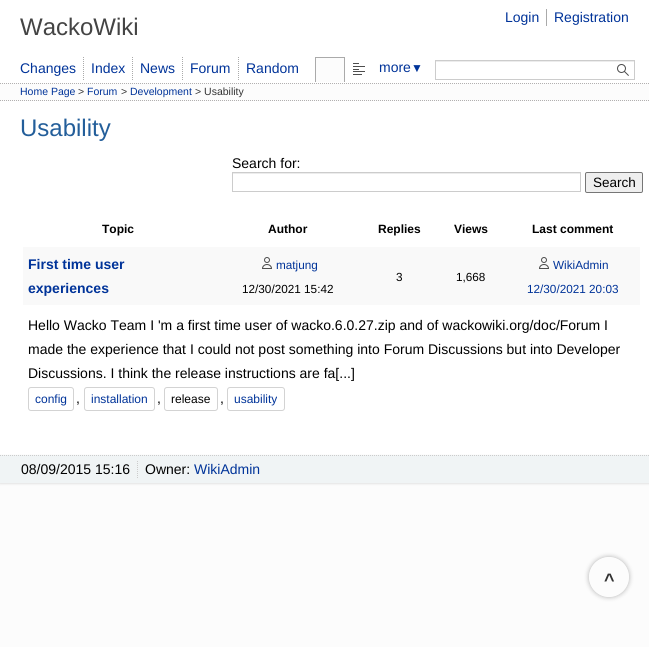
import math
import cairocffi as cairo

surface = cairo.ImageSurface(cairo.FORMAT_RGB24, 649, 647)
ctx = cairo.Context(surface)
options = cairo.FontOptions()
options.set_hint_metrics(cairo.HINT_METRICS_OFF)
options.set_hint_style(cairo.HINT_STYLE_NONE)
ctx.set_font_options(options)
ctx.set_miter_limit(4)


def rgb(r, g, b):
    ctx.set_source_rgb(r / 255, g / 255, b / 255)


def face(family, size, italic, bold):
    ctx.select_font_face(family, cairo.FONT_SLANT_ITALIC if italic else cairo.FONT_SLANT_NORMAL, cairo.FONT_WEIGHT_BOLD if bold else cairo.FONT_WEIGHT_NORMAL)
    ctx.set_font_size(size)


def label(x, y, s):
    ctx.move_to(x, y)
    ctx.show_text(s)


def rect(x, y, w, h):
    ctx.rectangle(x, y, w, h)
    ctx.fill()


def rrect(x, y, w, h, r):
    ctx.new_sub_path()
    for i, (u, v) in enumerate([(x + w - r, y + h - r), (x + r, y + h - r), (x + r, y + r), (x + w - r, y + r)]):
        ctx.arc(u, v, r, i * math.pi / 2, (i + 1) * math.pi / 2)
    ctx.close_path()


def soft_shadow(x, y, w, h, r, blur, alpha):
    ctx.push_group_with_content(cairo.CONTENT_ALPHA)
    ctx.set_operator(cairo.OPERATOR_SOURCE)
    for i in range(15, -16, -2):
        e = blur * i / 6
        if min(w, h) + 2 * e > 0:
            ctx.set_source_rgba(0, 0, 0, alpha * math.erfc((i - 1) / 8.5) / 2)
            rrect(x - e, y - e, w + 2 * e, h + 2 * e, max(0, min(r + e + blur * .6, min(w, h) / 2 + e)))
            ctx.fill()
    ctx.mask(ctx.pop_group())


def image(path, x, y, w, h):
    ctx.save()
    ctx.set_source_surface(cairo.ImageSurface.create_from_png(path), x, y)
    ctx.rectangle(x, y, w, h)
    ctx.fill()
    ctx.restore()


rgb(252, 252, 252)
ctx.paint()
rgb(255, 255, 255)
rect(0, 0, 649, 83)
face('Liberation Sans', 24, 0, 0)
rgb(68, 68, 68)
label(20, 35, 'WackoWiki')
face('Liberation Sans', 14, 0, 0)
rgb(0, 51, 153)
label(505, 22, 'Login')
rgb(170, 170, 170)
rect(546, 9, 1, 17)
rgb(0, 51, 153)
label(554, 22, 'Registration')
label(20, 73, 'Changes')
ctx.new_path()
ctx.move_to(83.5, 57)
ctx.line_to(83.5, 80)
rgb(170, 170, 170)
ctx.set_line_width(1)
ctx.set_dash([1, 1])
ctx.stroke()
rgb(0, 51, 153)
label(91, 73, 'Index')
ctx.new_path()
ctx.move_to(132.5, 57)
ctx.line_to(132.5, 80)
rgb(170, 170, 170)
ctx.stroke()
rgb(0, 51, 153)
label(140, 73, 'News')
ctx.new_path()
ctx.move_to(182.5, 57)
ctx.line_to(182.5, 80)
rgb(170, 170, 170)
ctx.stroke()
rgb(0, 51, 153)
label(190, 73, 'Forum')
ctx.new_path()
ctx.move_to(238.5, 57)
ctx.line_to(238.5, 80)
rgb(170, 170, 170)
ctx.stroke()
rgb(0, 51, 153)
label(246, 73, 'Random')
rgb(252, 252, 252)
rect(316, 58, 28, 24)
rgb(170, 170, 170)
rect(315, 57, 30, 1)
rect(344, 57, 1, 25)
rect(315, 57, 1, 25)
image('image0.png', 353, 63, 12, 12)
rgb(0, 51, 153)
label(379, 72, 'more')
face('Liberation Sans', 12, 0, 0)
label(411, 72, '▼')
rgb(236, 236, 236)
rect(436, 61, 198, 1)
ctx.rectangle(435.5, 60.5, 199, 19)
rgb(204, 204, 204)
ctx.set_dash([])
ctx.stroke()
image('image1.png', 617, 64, 12, 12)
ctx.new_path()
ctx.move_to(0, 83.5)
ctx.line_to(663, 83.5)
rgb(178, 176, 176)
ctx.set_dash([1, 1])
ctx.stroke()
ctx.new_path()
ctx.move_to(0, 100.5)
ctx.line_to(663, 100.5)
ctx.stroke()
face('Liberation Sans', 10.5, 0, 0)
rgb(0, 51, 153)
label(20, 95, 'Home Page')
rgb(51, 51, 51)
label(78, 95, '>')
rgb(0, 51, 153)
label(87, 95, 'Forum')
rgb(51, 51, 51)
label(121, 95, '>')
rgb(0, 51, 153)
label(130, 95, 'Development')
rgb(51, 51, 51)
label(195, 95, '> Usability')
ctx.save()
ctx.set_fill_rule(cairo.FILL_RULE_EVEN_ODD)
ctx.new_path()
ctx.move_to(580, 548)
ctx.line_to(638, 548)
ctx.line_to(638, 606)
ctx.line_to(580, 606)
ctx.close_path()
ctx.move_to(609, 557)
ctx.curve_to(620, 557, 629, 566, 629, 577)
ctx.curve_to(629, 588, 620, 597, 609, 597)
ctx.curve_to(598, 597, 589, 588, 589, 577)
ctx.curve_to(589, 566, 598, 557, 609, 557)
ctx.close_path()
ctx.clip()
rgb(0, 0, 0)
soft_shadow(589, 557, 40, 40, 20, 2.5, 0.3)
ctx.restore()
face('Liberation Sans', 18, 0, 1)
label(604, 586, '^')
rgb(255, 255, 255)
rect(0, 101, 649, 354)
face('Liberation Sans', 24, 0, 0)
rgb(35, 94, 154)
label(20, 136, 'Usability')
face('Liberation Sans', 14, 0, 0)
rgb(0, 0, 0)
label(232, 168, 'Search for:')
rgb(236, 236, 236)
rect(233, 173, 347, 1)
ctx.rectangle(232.5, 172.5, 348, 19)
rgb(204, 204, 204)
ctx.set_dash([])
ctx.stroke()
rgb(239, 239, 239)
rrect(585.5, 172.5, 57, 20, 1.5)
ctx.fill_preserve()
rgb(118, 118, 118)
ctx.stroke()
face('Liberation Sans', 13.5, 0, 0)
rgb(0, 0, 0)
label(593, 187, 'Search')
face('Liberation Sans', 12, 0, 1)
label(102, 233, 'Topic')
label(268, 233, 'Author')
label(378, 233, 'Replies')
label(454, 233, 'Views')
label(532, 233, 'Last comment')
rgb(249, 249, 249)
rect(23, 247, 617, 58)
face('Liberation Sans', 14, 0, 1)
rgb(0, 51, 153)
label(28, 269, 'First time user')
label(28, 293, 'experiences')
image('image2.png', 262, 257, 10, 12)
face('Liberation Sans', 11.75, 0, 0)
label(276, 269, 'matjung')
rgb(0, 0, 0)
label(242, 293, '12/30/2021 15:42')
label(396, 281, '3')
label(456, 281, '1,668')
image('image2.png', 539, 257, 10, 12)
rgb(0, 51, 153)
label(553, 269, 'WikiAdmin')
label(527, 293, '12/30/2021 20:03')
face('Liberation Sans', 14, 0, 0)
rgb(0, 0, 0)
label(28, 330, 'Hello Wacko Team I \'m a first time user of wacko.6.0.27.zip and of wackowiki.org/doc/Forum I')
label(28, 354, 'made the experience that I could not post something into Forum Discussions but into Developer')
label(28, 378, 'Discussions. I think the release instructions are fa[...]')
rrect(28.5, 387.5, 45, 23, 2.5)
rgb(211, 211, 211)
ctx.stroke()
face('Liberation Sans', 12, 0, 0)
rgb(0, 51, 153)
label(35, 403, 'config')
face('Liberation Sans', 14, 0, 0)
rgb(0, 0, 0)
label(76, 403, ',')
rrect(84.5, 387.5, 70, 23, 2.5)
rgb(211, 211, 211)
ctx.stroke()
face('Liberation Sans', 12, 0, 0)
rgb(0, 51, 153)
label(91, 403, 'installation')
face('Liberation Sans', 14, 0, 0)
rgb(0, 0, 0)
label(157, 403, ',')
rrect(164.5, 387.5, 53, 23, 2.5)
rgb(211, 211, 211)
ctx.stroke()
face('Liberation Sans', 12, 0, 0)
rgb(0, 0, 0)
label(171, 403, 'release')
face('Liberation Sans', 14, 0, 0)
label(220, 403, ',')
rrect(227.5, 387.5, 57, 23, 2.5)
rgb(211, 211, 211)
ctx.stroke()
face('Liberation Sans', 12, 0, 0)
rgb(0, 51, 153)
label(234, 403, 'usability')
rgb(0, 0, 0)
soft_shadow(0, 456, 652, 28, 0, 1, 0.1)
rgb(240, 244, 245)
rect(0, 455, 649, 28)
ctx.new_path()
ctx.move_to(0, 455.5)
ctx.line_to(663, 455.5)
rgb(204, 204, 204)
ctx.set_dash([1, 1])
ctx.stroke()
face('Liberation Sans', 14, 0, 0)
rgb(0, 0, 0)
label(21, 474, '08/09/2015 15:16')
ctx.new_path()
ctx.move_to(137.5, 461)
ctx.line_to(137.5, 478)
rgb(204, 204, 204)
ctx.stroke()
rgb(0, 0, 0)
label(145, 474, 'Owner:')
rgb(0, 51, 153)
label(194, 474, 'WikiAdmin')
surface.write_to_png('render.png')
